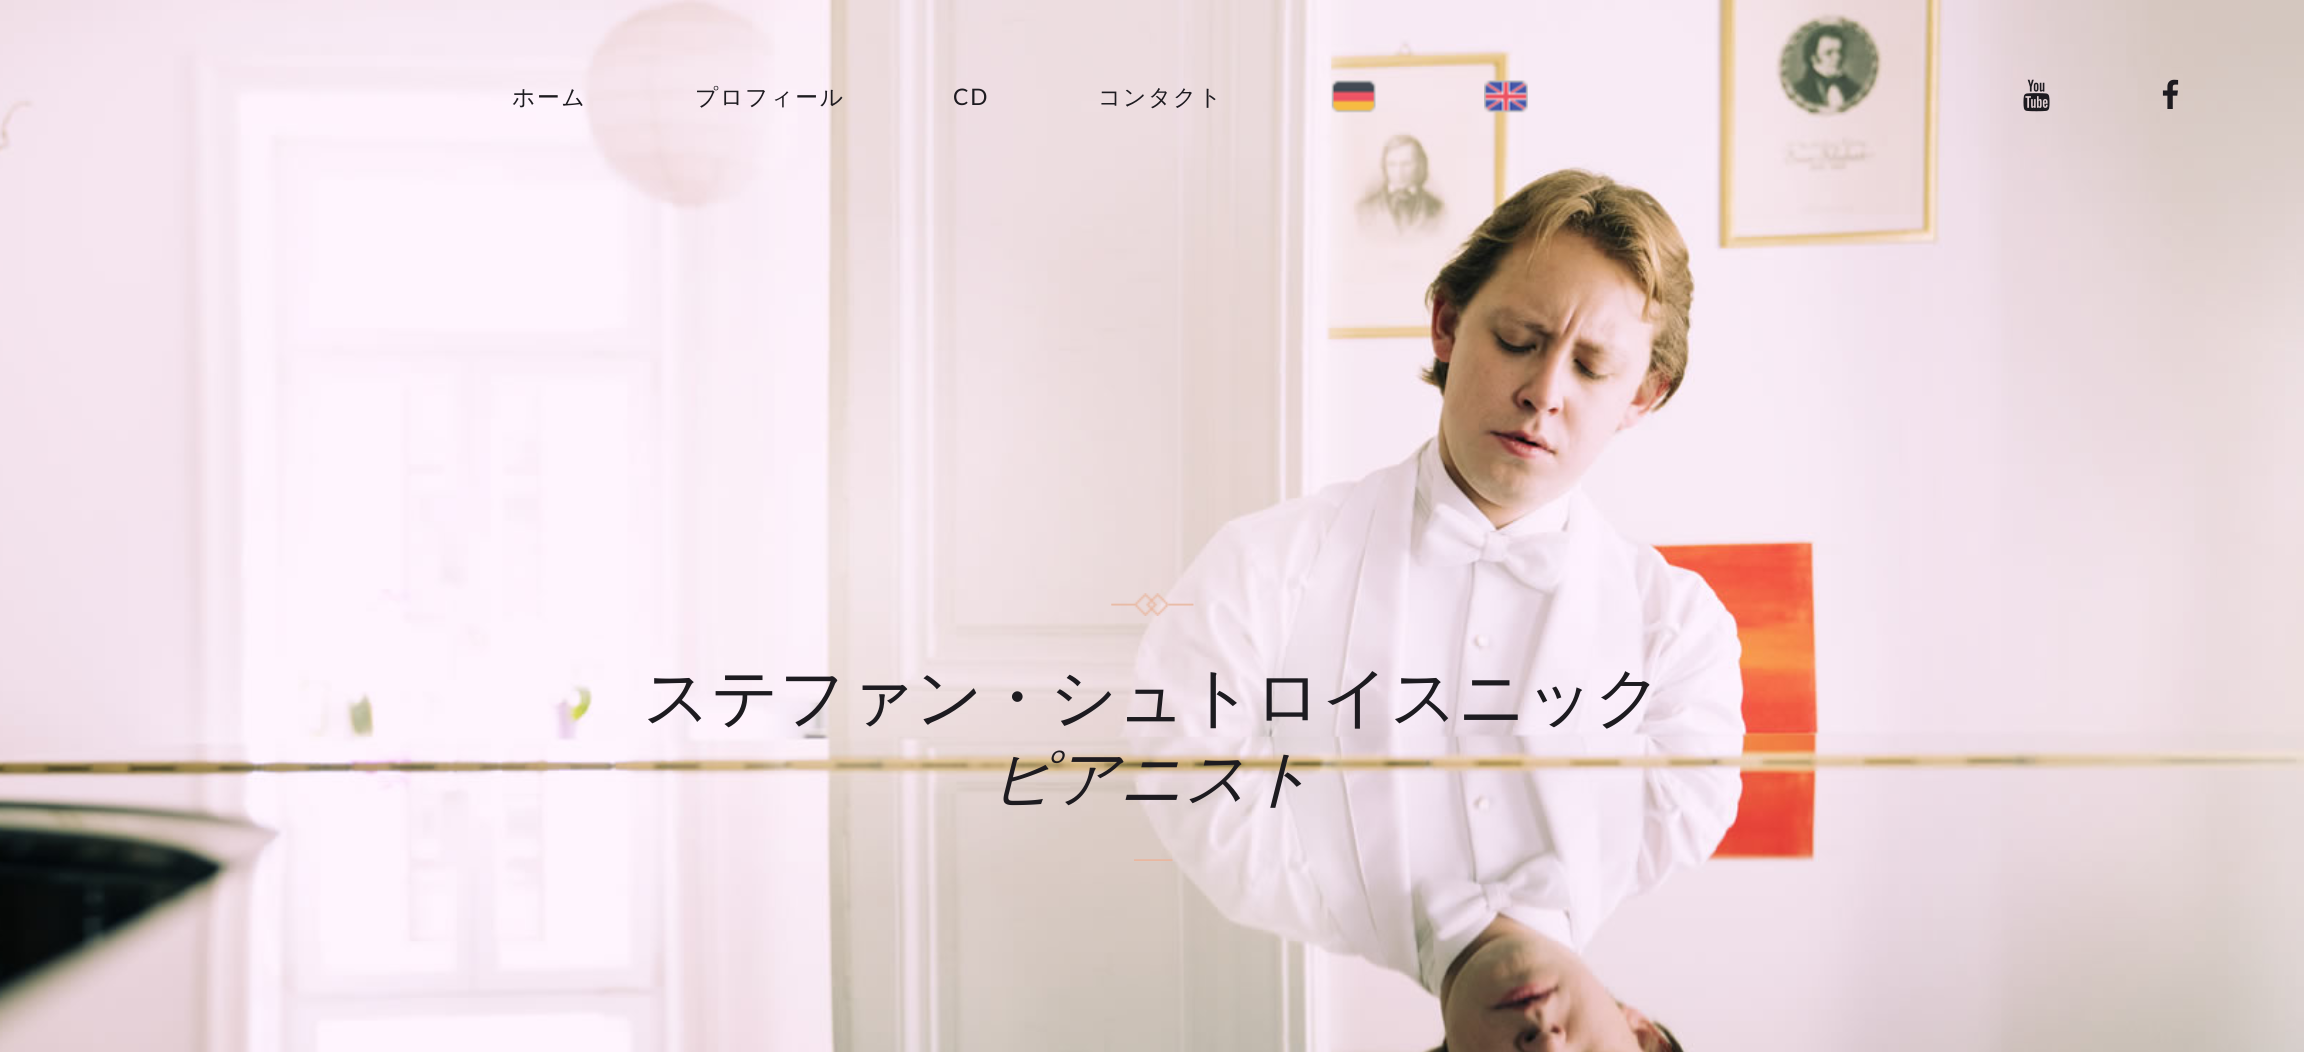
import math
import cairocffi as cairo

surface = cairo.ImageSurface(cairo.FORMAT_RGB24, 2304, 1052)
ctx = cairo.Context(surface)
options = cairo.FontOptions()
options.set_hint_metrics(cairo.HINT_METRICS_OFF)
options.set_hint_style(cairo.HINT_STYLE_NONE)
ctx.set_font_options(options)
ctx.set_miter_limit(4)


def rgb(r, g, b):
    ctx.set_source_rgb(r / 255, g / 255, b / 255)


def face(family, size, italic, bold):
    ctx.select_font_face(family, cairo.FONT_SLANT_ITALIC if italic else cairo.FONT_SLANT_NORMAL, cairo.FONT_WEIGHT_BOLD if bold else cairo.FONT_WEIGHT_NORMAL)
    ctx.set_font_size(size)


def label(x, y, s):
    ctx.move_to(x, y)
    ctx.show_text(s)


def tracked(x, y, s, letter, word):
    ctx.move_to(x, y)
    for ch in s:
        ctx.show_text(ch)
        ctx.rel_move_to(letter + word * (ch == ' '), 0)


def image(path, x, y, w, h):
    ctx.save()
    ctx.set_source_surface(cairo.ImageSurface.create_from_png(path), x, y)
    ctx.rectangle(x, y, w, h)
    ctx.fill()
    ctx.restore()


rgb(255, 255, 255)
ctx.paint()
image('image4.png', 0, 0, 2304, 1052)
face('WenQuanYi Zen Hei Medium', 22.75, 0, 0)
rgb(29, 27, 32)
tracked(512, 105, 'ホーム', 1.75, 0)
tracked(695, 105, 'プロフィール', 1.75, 0)
face('Lato', 22.75, 0, 0)
tracked(953, 105, 'CD', 1.75, 0)
face('WenQuanYi Zen Hei Medium', 22.75, 0, 0)
tracked(1098, 105, 'コンタクト', 1.75, 0)
image('image0.png', 1331, 80, 45, 33)
image('image1.png', 1484, 80, 44, 33)
image('image2.png', 2023, 79, 27, 33)
image('image3.png', 2162, 79, 17, 30)
image('image5.png', 1111, 593, 83, 23)
face('WenQuanYi Zen Hei Medium', 66.5, 0, 0)
label(643, 720, 'ステファン・シュトロイスニック')
face('WenQuanYi Zen Hei Medium', 63, 1, 0)
label(991, 800, 'ピアニスト')
image('image6.png', 1134, 859, 39, 2)
surface.write_to_png('render.png')
